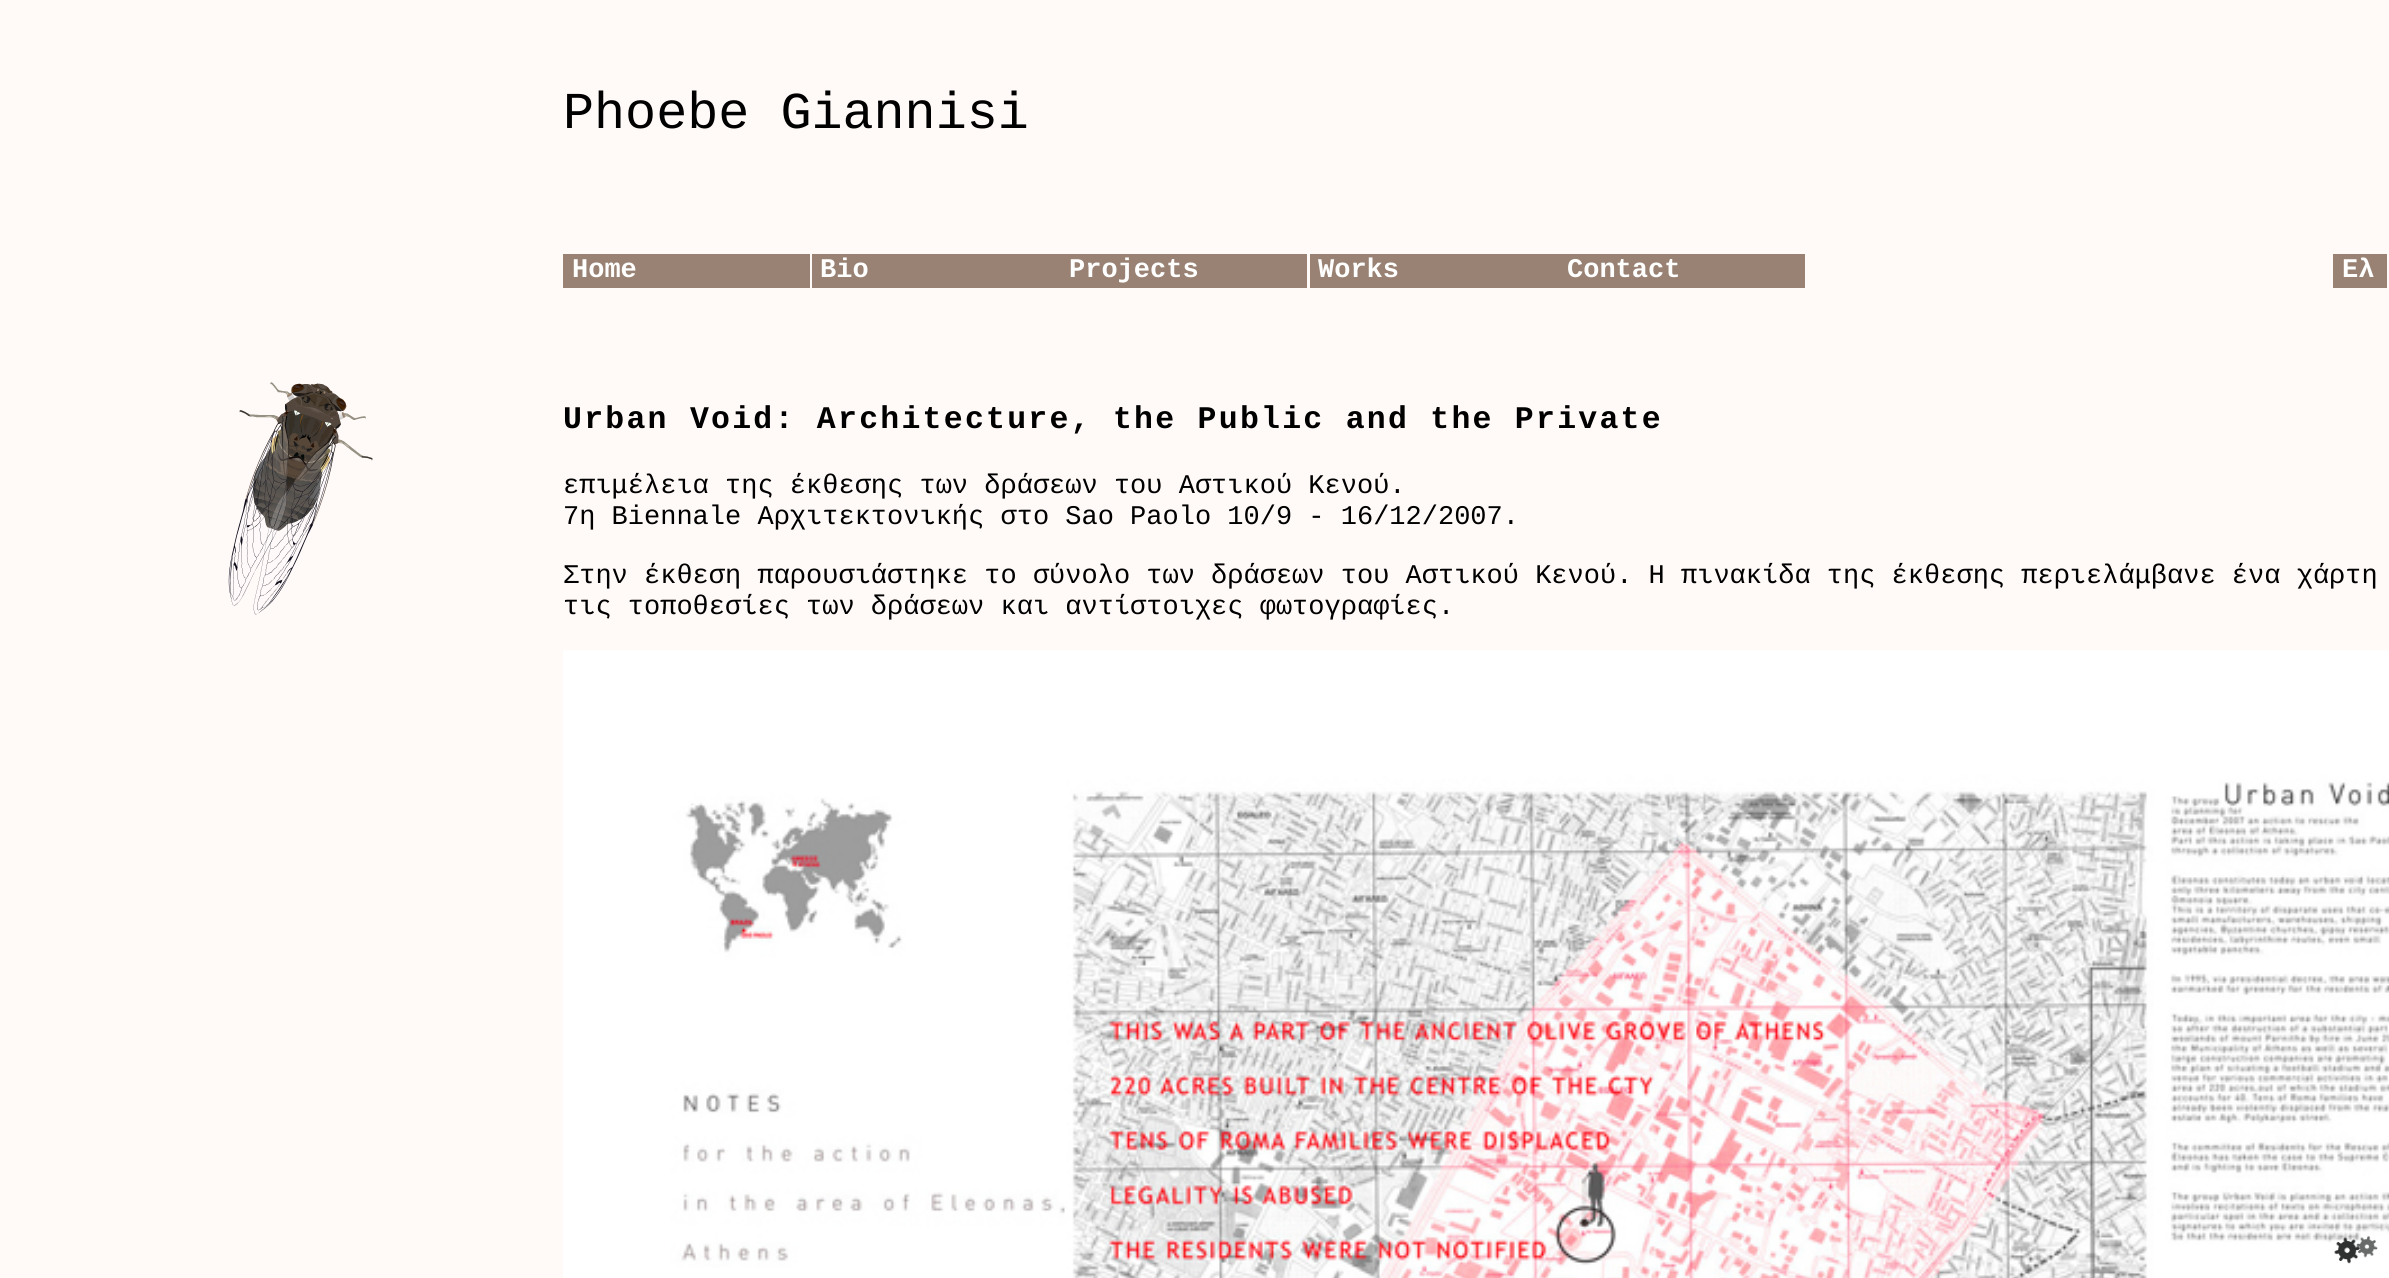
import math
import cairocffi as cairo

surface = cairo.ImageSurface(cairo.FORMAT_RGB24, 2389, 1278)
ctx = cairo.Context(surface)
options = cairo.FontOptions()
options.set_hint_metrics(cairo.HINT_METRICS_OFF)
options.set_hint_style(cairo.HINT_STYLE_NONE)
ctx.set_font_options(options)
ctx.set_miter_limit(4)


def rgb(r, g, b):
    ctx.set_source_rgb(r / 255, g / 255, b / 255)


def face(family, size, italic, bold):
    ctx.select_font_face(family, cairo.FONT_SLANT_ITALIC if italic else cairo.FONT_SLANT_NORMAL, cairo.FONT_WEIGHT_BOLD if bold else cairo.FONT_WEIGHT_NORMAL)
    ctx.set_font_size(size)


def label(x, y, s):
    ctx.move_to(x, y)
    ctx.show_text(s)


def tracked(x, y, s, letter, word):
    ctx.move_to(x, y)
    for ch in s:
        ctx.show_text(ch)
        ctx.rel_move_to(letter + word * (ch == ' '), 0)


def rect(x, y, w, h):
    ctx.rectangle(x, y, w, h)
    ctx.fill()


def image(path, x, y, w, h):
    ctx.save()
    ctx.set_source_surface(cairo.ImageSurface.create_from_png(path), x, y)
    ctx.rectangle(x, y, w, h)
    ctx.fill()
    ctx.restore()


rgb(255, 249, 248)
ctx.paint()
image('image0.png', 228, 382, 145, 233)
face('Liberation Mono', 51.75, 0, 0)
rgb(0, 0, 0)
label(563, 128, 'Phoebe Giannisi')
rgb(153, 130, 115)
rect(563, 254, 247, 34)
face('Liberation Mono', 27, 0, 1)
rgb(255, 255, 255)
label(572, 277, 'Home')
rgb(153, 130, 115)
rect(812, 254, 495, 34)
rgb(255, 255, 255)
label(820, 277, 'Bio')
label(1069, 277, 'Projects')
rgb(153, 130, 115)
rect(1310, 254, 495, 34)
rgb(255, 255, 255)
label(1318, 277, 'Works')
label(1567, 277, 'Contact')
rgb(153, 130, 115)
rect(2333, 254, 54, 34)
rgb(255, 255, 255)
label(2342, 277, 'Ελ')
face('Liberation Mono', 31.5, 0, 1)
rgb(0, 0, 0)
tracked(563, 428, 'Urban Void: Architecture, the Public and the Private', 2.25, 0)
face('Liberation Mono', 27, 0, 0)
label(563, 493, 'επιμέλεια της έκθεσης των δράσεων του Αστικού Κενού.')
label(563, 524, '7η Biennale Αρχιτεκτονικής στο Sao Paolo 10/9 - 16/12/2007.')
label(563, 583, 'Στην έκθεση παρουσιάστηκε το σύνολο των δράσεων του Αστικού Κενού. Η πινακίδα της έκθεσης περιελάμβανε ένα χάρτη')
label(563, 614, 'τις τοποθεσίες των δράσεων και αντίστοιχες φωτογραφίες.')
image('image1.png', 563, 650, 1826, 628)
image('image2.png', 2334, 1235, 44, 29)
surface.write_to_png('render.png')
